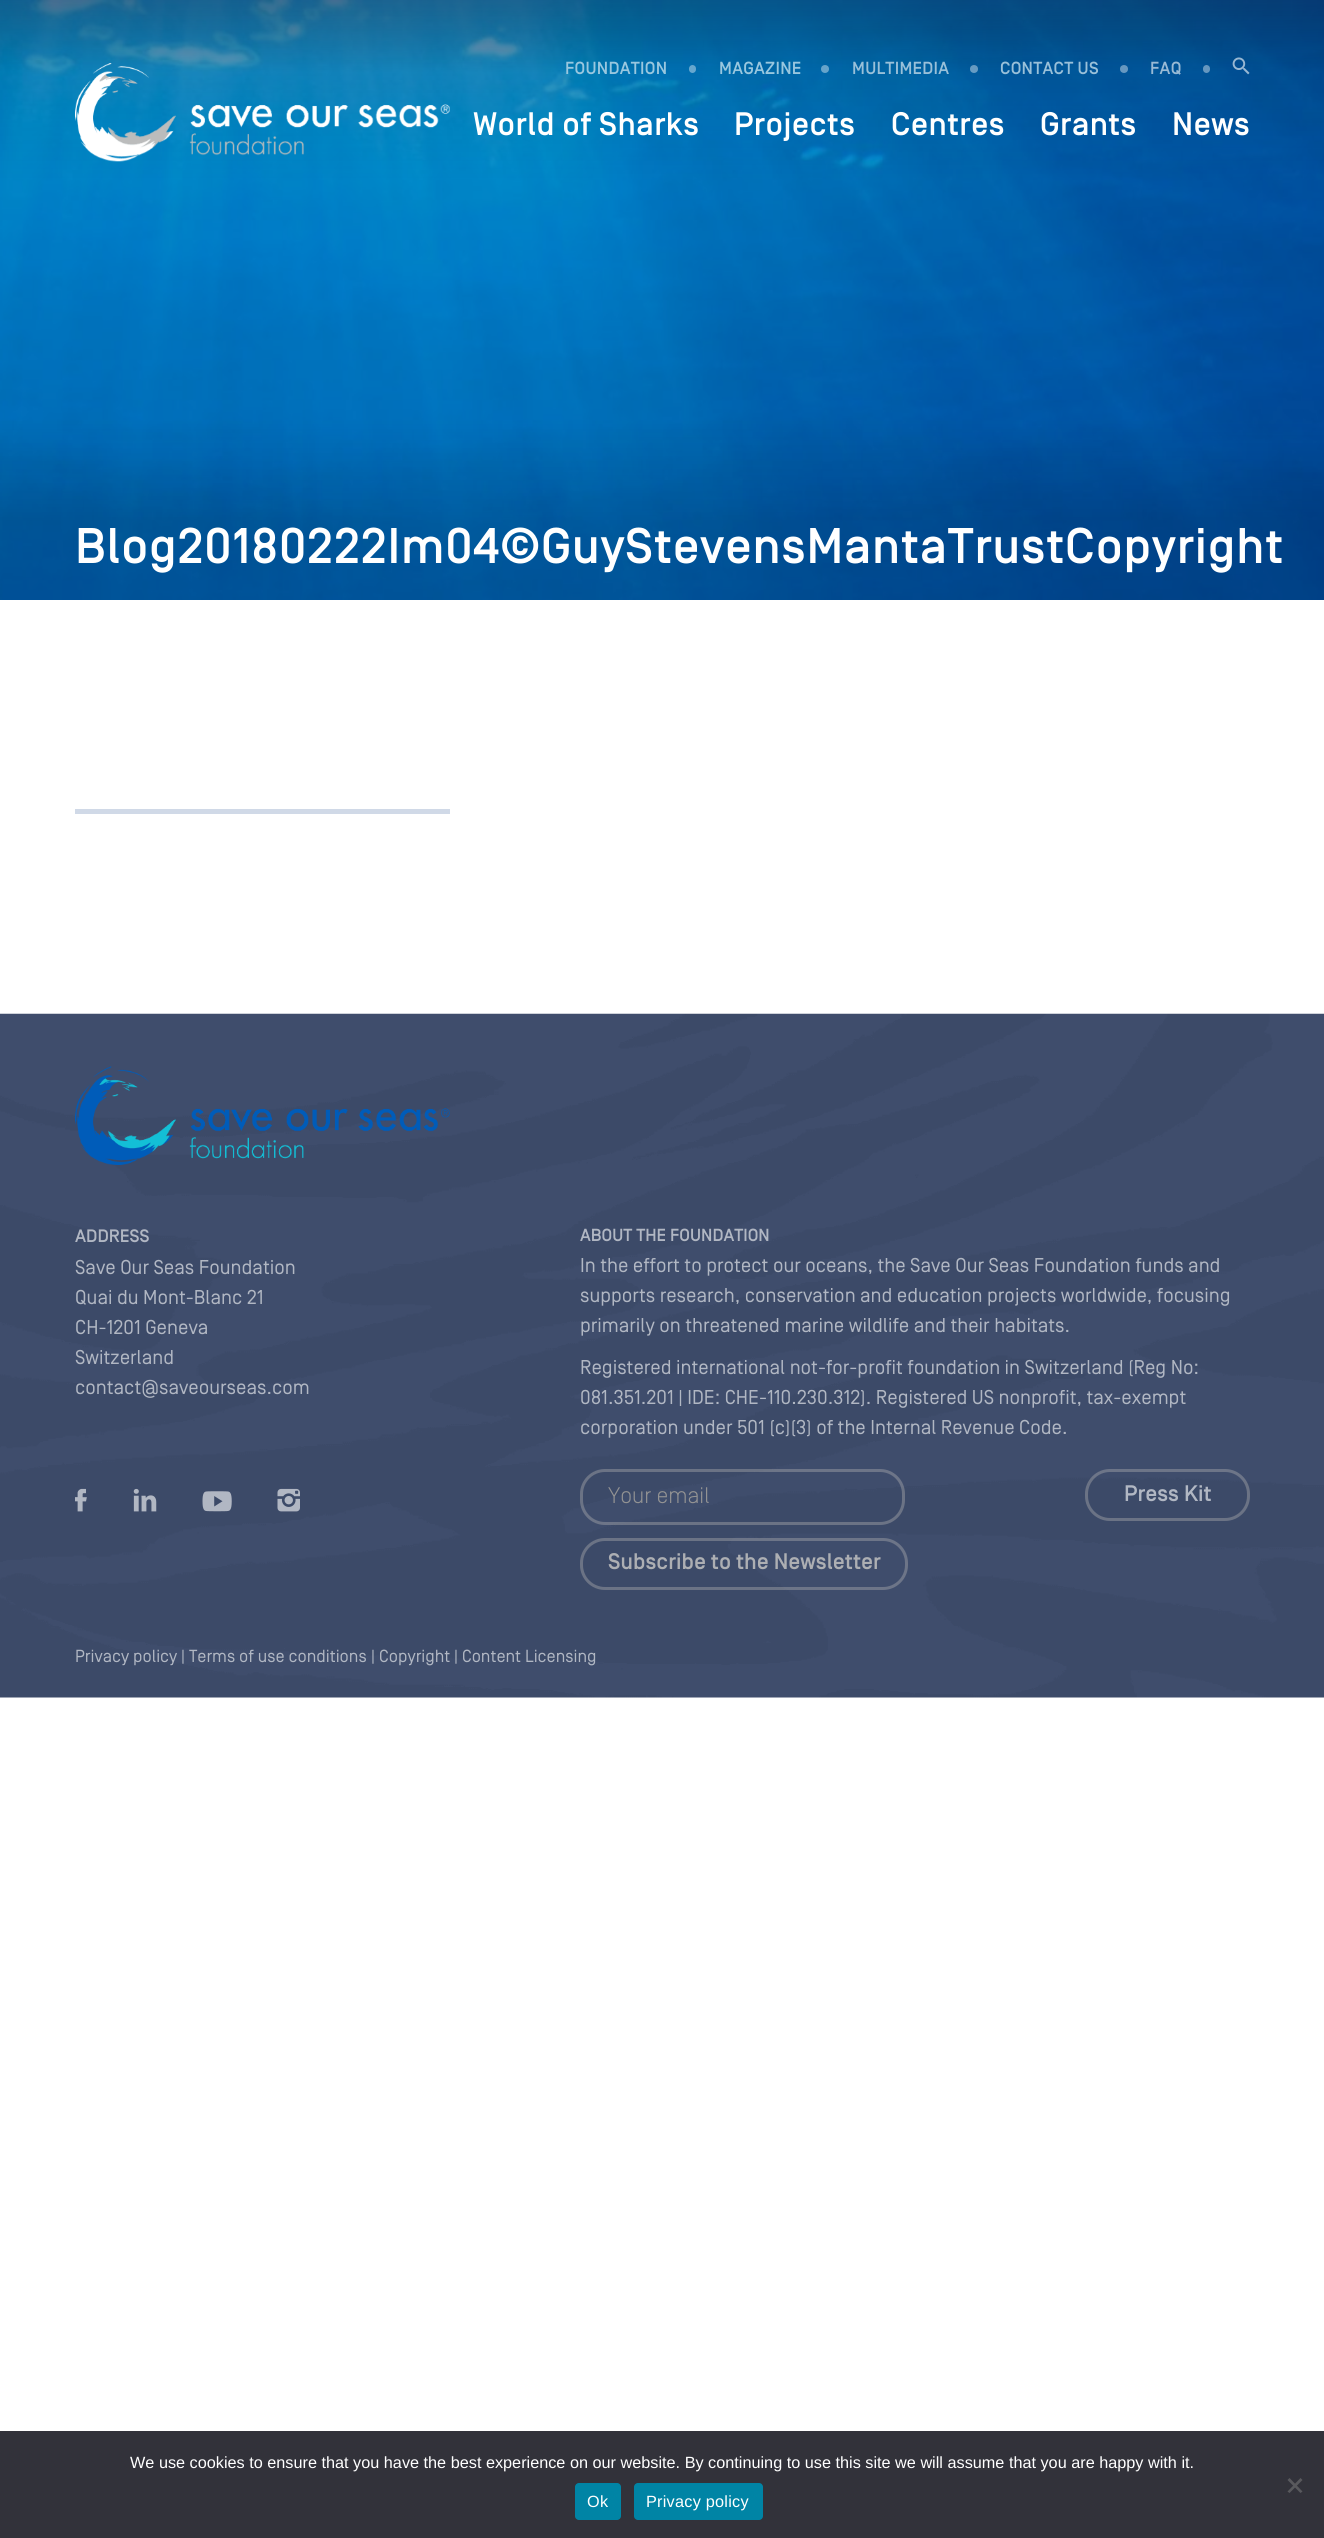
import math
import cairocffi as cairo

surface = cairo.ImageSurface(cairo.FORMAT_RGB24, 1324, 2538)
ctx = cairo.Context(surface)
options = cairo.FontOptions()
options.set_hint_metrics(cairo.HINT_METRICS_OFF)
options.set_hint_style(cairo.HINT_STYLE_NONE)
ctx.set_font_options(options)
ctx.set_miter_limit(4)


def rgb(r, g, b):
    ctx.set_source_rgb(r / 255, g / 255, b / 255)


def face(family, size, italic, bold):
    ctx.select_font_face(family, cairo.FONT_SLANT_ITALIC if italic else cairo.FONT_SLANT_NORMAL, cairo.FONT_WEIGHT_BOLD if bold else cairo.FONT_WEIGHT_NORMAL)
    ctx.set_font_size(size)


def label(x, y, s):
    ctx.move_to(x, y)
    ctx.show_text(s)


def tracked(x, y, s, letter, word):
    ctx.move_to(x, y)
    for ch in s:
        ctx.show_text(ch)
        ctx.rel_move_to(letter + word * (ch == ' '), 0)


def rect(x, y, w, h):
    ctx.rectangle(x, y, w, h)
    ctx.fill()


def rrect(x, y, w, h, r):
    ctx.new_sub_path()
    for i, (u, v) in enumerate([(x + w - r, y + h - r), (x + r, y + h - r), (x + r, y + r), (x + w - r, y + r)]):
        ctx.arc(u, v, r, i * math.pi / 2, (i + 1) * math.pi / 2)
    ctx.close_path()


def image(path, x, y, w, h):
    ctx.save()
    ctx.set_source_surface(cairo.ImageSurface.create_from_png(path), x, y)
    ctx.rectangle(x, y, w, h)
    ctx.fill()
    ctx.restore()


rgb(255, 255, 255)
ctx.paint()
rgb(0, 77, 161)
rect(0, 0, 1324, 600)
image('image2.png', 0, 0, 1324, 600)
gradient = cairo.LinearGradient(663, 0, 663, 600)
gradient.add_color_stop_rgba(0, 0.059, 0.094, 0.2, 0.4)
gradient.add_color_stop_rgba(0.12, 0, 0, 0, 0.1)
gradient.add_color_stop_rgba(0.3, 0, 0, 0, 0)
gradient.add_color_stop_rgba(0.7, 0, 0, 0, 0)
gradient.add_color_stop_rgba(0.87, 0, 0, 0, 0.15)
ctx.set_source(gradient)
rect(0, 0, 1324, 600)
image('image0.png', 75, 63, 375, 99)
face('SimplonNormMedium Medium', 17.5, 0, 0)
rgb(153, 199, 223)
tracked(565, 74, 'FOUNDATION', 0.25, 0)
ctx.set_source_rgba(1, 1, 1, 0.4)
rrect(689, 65, 7, 8, 3.5)
ctx.fill()
rgb(153, 199, 223)
tracked(719, 74, 'MAGAZINE', 0.25, 0)
ctx.set_source_rgba(1, 1, 1, 0.4)
ctx.new_path()
ctx.arc(825, 69, 4, 0, 2 * math.pi)
ctx.fill()
rgb(153, 192, 217)
tracked(852, 74, 'MULTIMEDIA', 0.25, 0)
ctx.set_source_rgba(1, 1, 1, 0.4)
ctx.new_path()
ctx.arc(974, 69, 4, 0, 2 * math.pi)
ctx.fill()
rgb(153, 192, 217)
tracked(1000, 74, 'CONTACT US', 0.25, 0)
ctx.set_source_rgba(1, 1, 1, 0.4)
ctx.new_path()
ctx.arc(1124, 69, 4, 0, 2 * math.pi)
ctx.fill()
rgb(153, 186, 213)
tracked(1150, 74, 'FAQ', 0.25, 0)
ctx.set_source_rgba(1, 1, 1, 0.4)
rrect(1203, 65, 7, 8, 3.5)
ctx.fill()
image('image1.png', 1232, 57, 18, 18)
face('SimplonNormMedium Medium', 32.5, 0, 0)
rgb(255, 255, 255)
tracked(473, 135, 'World of Sharks', 0.4, 0)
tracked(734, 135, 'Projects', 0.4, 0)
tracked(891, 135, 'Centres', 0.4, 0)
tracked(1040, 135, 'Grants', 0.4, 0)
tracked(1172, 135, 'News', 0.4, 0)
face('SimplonNormMedium Medium', 50, 0, 0)
tracked(75, 563, 'Blog20180222Im04©GuyStevensMantaTrustCopyright', 0.85, 0)
rgb(208, 217, 231)
rect(75, 809, 375, 5)
rgb(50, 50, 58)
rect(0, 2431, 1324, 107)
face('Liberation Sans', 16.25, 0, 0)
rgb(255, 255, 255)
label(130, 2468, 'We use cookies to ensure that you have the best experience on our website. By continuing to use this site we will assume that you are happy with it.')
rgb(89, 89, 93)
ctx.new_path()
ctx.move_to(1300.5, 2478)
ctx.line_to(1302.5, 2480)
ctx.line_to(1289.5, 2493)
ctx.line_to(1287.5, 2491.5)
ctx.close_path()
ctx.fill()
ctx.new_path()
ctx.move_to(1287.5, 2480)
ctx.line_to(1289.5, 2478)
ctx.line_to(1302.5, 2491.5)
ctx.line_to(1300.5, 2493)
ctx.close_path()
ctx.fill()
rgb(0, 132, 165)
rrect(575, 2483, 46, 37, 4)
ctx.fill()
rgb(255, 255, 255)
tracked(587, 2507, 'Ok', 0.25, 0)
rgb(0, 132, 165)
rrect(634, 2483, 129, 37, 4)
ctx.fill()
rgb(255, 255, 255)
tracked(646, 2507, 'Privacy policy', 0.25, 0)
image('image3.png', 0, 1013, 1324, 685)
image('image4.png', 75, 1066, 375, 99)
face('SimplonNormMedium Medium', 18, 0, 0)
rgb(177, 183, 195)
label(75, 1242, 'ADDRESS')
face('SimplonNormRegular', 20, 0, 0)
label(75, 1274, 'Save Our Seas Foundation')
label(75, 1304, 'Quai du Mont-Blanc 21')
label(75, 1334, 'CH-1201 Geneva')
label(75, 1364, 'Switzerland')
label(75, 1394, 'contact@saveourseas.com')
face('SimplonNormMedium Medium', 17.5, 0, 0)
label(580, 1241, 'ABOUT THE FOUNDATION')
face('SimplonNormRegular', 20, 0, 0)
label(580, 1272, 'In the effort to protect our oceans, the Save Our Seas Foundation funds and')
label(580, 1302, 'supports research, conservation and education projects worldwide, focusing')
label(580, 1332, 'primarily on threatened marine wildlife and their habitats.')
label(580, 1374, 'Registered international not-for-profit foundation in Switzerland (Reg No:')
label(580, 1404, '081.351.201 | IDE: CHE-110.230.312). Registered US nonprofit, tax-exempt')
label(580, 1434, 'corporation under 501 (c)(3) of the Internal Revenue Code.')
image('image5.png', 75, 1488, 12, 24)
image('image6.png', 133, 1488, 24, 24)
image('image7.png', 202, 1491, 30, 21)
image('image8.png', 277, 1488, 23, 24)
rrect(581.5, 1470.5, 322, 53, 23.5)
ctx.set_source_rgba(0.694, 0.694, 0.694, 0.4)
ctx.set_line_width(3)
ctx.stroke()
face('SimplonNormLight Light', 22.5, 0, 0)
rgb(147, 147, 147)
label(608, 1503, 'Your email')
rrect(581.5, 1539.5, 325, 49, 23.5)
ctx.set_source_rgba(0.694, 0.694, 0.694, 0.4)
ctx.stroke()
face('SimplonNormMedium Medium', 22.5, 0, 0)
rgb(173, 175, 179)
label(608, 1569, 'Subscribe to the Newsletter')
rrect(1086.5, 1470.5, 162, 49, 23.5)
ctx.set_source_rgba(0.694, 0.694, 0.694, 0.4)
ctx.stroke()
rgb(177, 183, 195)
label(1124, 1501, 'Press Kit')
face('SimplonNormRegular', 17.5, 0, 0)
label(75, 1662, 'Privacy policy')
label(181, 1662, '| Terms of use conditions')
label(371, 1662, '|')
label(379, 1662, 'Copyright')
label(454, 1662, '| Content Licensing')
surface.write_to_png('render.png')
